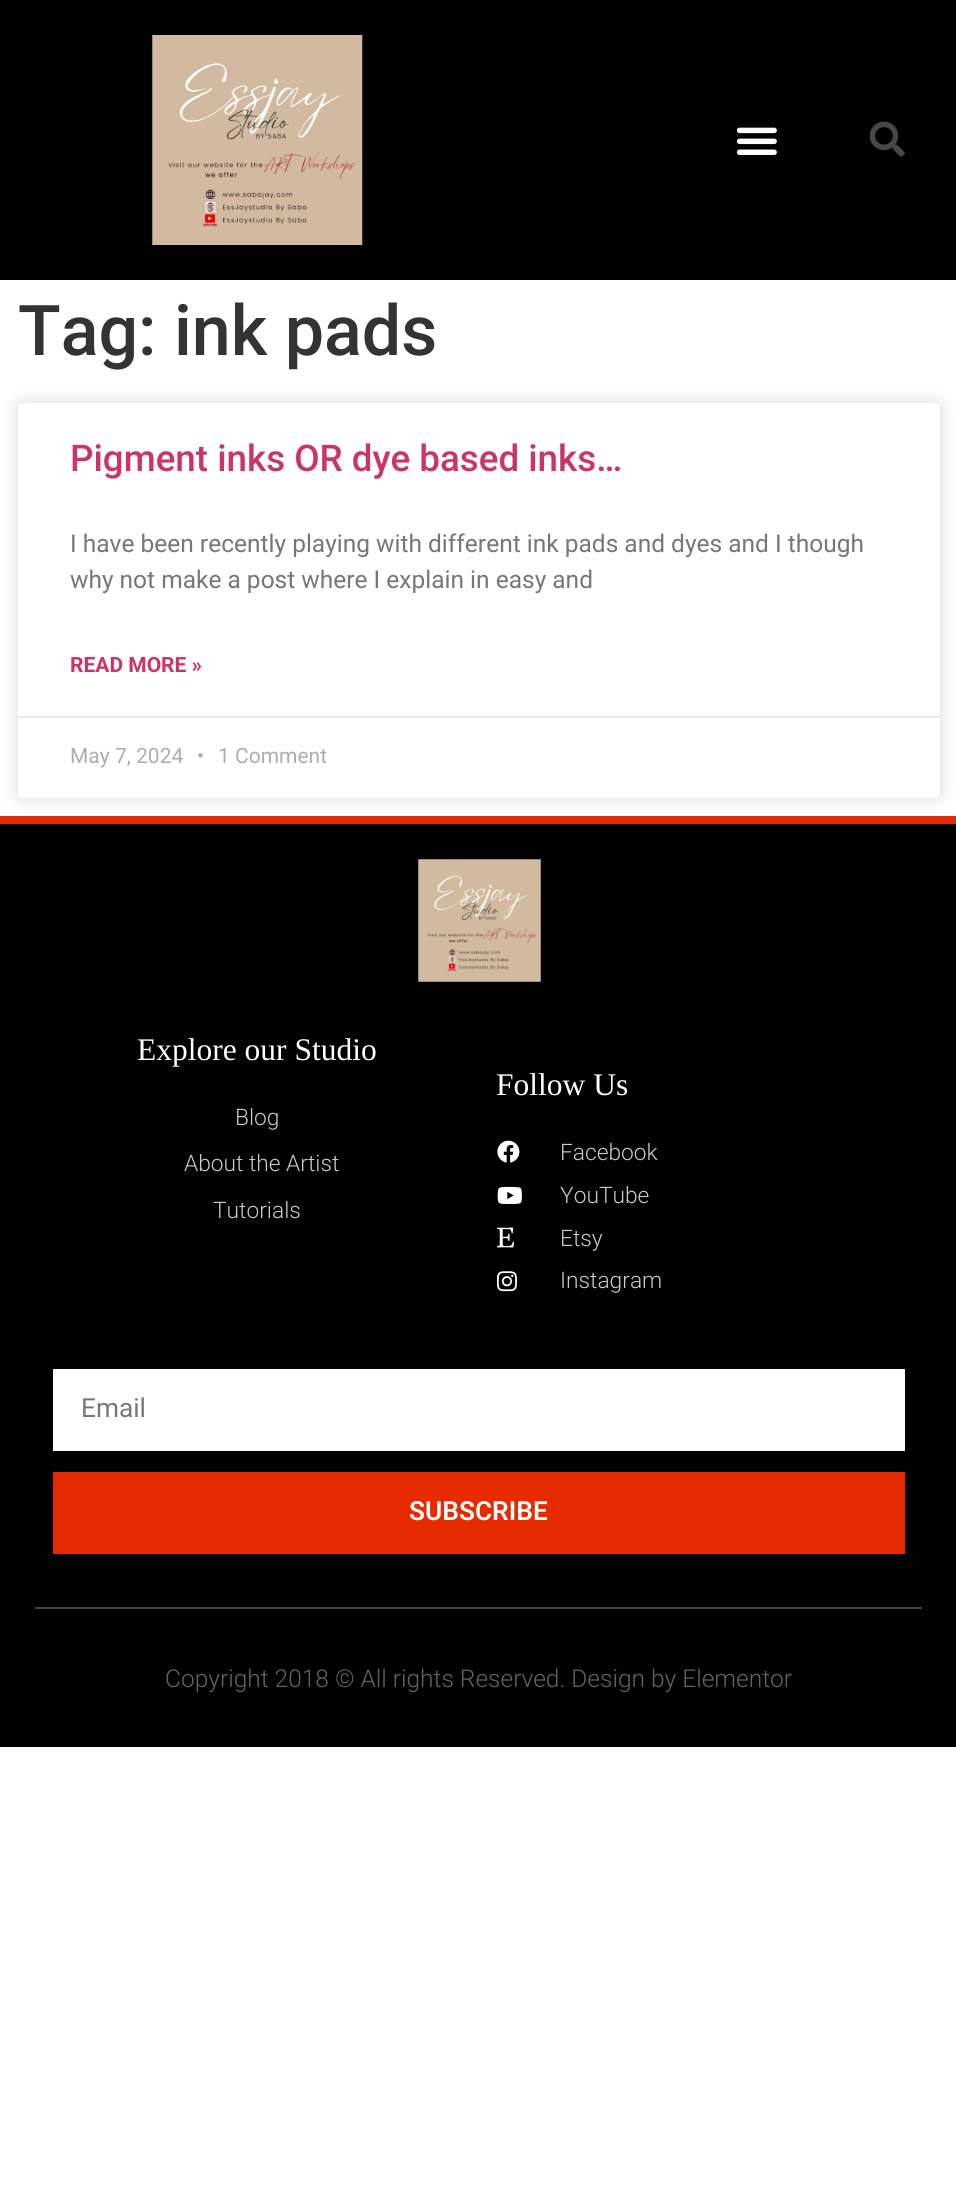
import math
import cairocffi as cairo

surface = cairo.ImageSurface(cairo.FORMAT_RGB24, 956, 2209)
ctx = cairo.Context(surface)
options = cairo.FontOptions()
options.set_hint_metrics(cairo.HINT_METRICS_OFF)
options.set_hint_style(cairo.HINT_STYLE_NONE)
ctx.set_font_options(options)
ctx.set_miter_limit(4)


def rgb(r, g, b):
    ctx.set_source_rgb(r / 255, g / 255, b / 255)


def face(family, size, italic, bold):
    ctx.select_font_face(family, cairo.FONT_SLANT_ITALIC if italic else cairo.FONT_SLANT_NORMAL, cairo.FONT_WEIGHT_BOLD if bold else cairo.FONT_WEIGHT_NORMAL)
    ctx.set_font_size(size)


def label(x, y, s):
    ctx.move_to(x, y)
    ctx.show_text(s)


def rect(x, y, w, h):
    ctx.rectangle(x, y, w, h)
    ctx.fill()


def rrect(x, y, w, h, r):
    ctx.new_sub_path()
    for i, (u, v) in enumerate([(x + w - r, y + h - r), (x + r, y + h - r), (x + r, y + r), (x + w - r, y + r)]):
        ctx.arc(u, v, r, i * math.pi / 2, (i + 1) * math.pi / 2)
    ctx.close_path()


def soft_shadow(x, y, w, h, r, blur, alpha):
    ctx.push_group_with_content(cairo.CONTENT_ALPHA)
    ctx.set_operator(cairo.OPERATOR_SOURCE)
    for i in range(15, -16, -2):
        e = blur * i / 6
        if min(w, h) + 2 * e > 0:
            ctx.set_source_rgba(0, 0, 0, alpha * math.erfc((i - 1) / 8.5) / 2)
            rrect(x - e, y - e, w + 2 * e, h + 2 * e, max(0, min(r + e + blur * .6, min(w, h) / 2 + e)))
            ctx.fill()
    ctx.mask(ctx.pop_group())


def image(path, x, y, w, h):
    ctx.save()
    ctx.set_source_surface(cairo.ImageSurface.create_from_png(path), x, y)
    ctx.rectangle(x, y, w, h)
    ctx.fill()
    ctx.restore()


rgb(255, 255, 255)
ctx.paint()
rgb(0, 0, 0)
rect(0, 0, 956, 280)
image('image0.png', 152, 35, 211, 210)
image('image1.png', 736, 127, 41, 28)
image('image2.png', 869, 121, 36, 36)
face('Roboto Medium', 70, 0, 0)
rgb(51, 51, 51)
label(18, 355, 'Tag: ink pads')
rgb(0, 0, 0)
soft_shadow(18, 403, 922, 395, 5, 9, 0.15)
rgb(255, 255, 255)
rrect(18, 403, 922, 395, 5)
ctx.fill()
face('Roboto Medium', 36.75, 0, 0)
rgb(204, 51, 102)
label(70, 471, 'Pigment inks OR dye based inks…')
face('Roboto', 24.5, 0, 0)
rgb(119, 119, 119)
label(70, 552, 'I have been recently playing with different ink pads and dyes and I though')
label(70, 588, 'why not make a post where I explain in easy and')
face('Roboto', 21, 0, 1)
rgb(204, 51, 102)
label(70, 672, 'READ MORE »')
rgb(234, 234, 234)
rect(18, 716, 922, 2)
face('Roboto', 21, 0, 0)
rgb(173, 173, 173)
label(70, 763, 'May 7, 2024')
label(197, 763, '•')
label(218, 763, '1 Comment')
rgb(0, 0, 0)
rect(0, 824, 956, 923)
rgb(232, 42, 0)
rect(0, 816, 956, 8)
image('image3.png', 418, 859, 123, 123)
face('Liberation Serif', 31.5, 0, 0)
rgb(255, 255, 255)
label(137, 1060, 'Explore our Studio')
face('Roboto Light', 22.75, 0, 0)
rgb(201, 201, 201)
label(235, 1125, 'Blog')
label(184, 1171, 'About the Artist')
label(213, 1218, 'Tutorials')
face('Liberation Serif', 31.5, 0, 0)
rgb(255, 255, 255)
label(496, 1095, 'Follow Us')
image('image4.png', 497, 1140, 23, 23)
face('Roboto Light', 22.75, 0, 0)
rgb(201, 201, 201)
label(560, 1160, 'Facebook')
image('image5.png', 497, 1186, 25, 18)
label(560, 1203, 'YouTube')
image('image6.png', 497, 1227, 17, 21)
label(560, 1246, 'Etsy')
image('image7.png', 497, 1271, 20, 21)
label(560, 1288, 'Instagram')
rgb(255, 255, 255)
rect(53, 1369, 852, 82)
face('Roboto', 26.25, 0, 0)
rgb(119, 119, 119)
label(81, 1417, 'Email')
rgb(232, 42, 0)
rect(53, 1472, 852, 82)
face('Roboto SemiBold', 26.25, 0, 0)
rgb(255, 255, 255)
label(409, 1520, 'SUBSCRIBE')
rgb(64, 64, 64)
rect(35, 1607, 887, 2)
face('Roboto Light', 24.5, 0, 0)
rgb(99, 99, 99)
label(165, 1687, 'Copyright 2018 © All rights Reserved. Design by Elementor')
surface.write_to_png('render.png')
